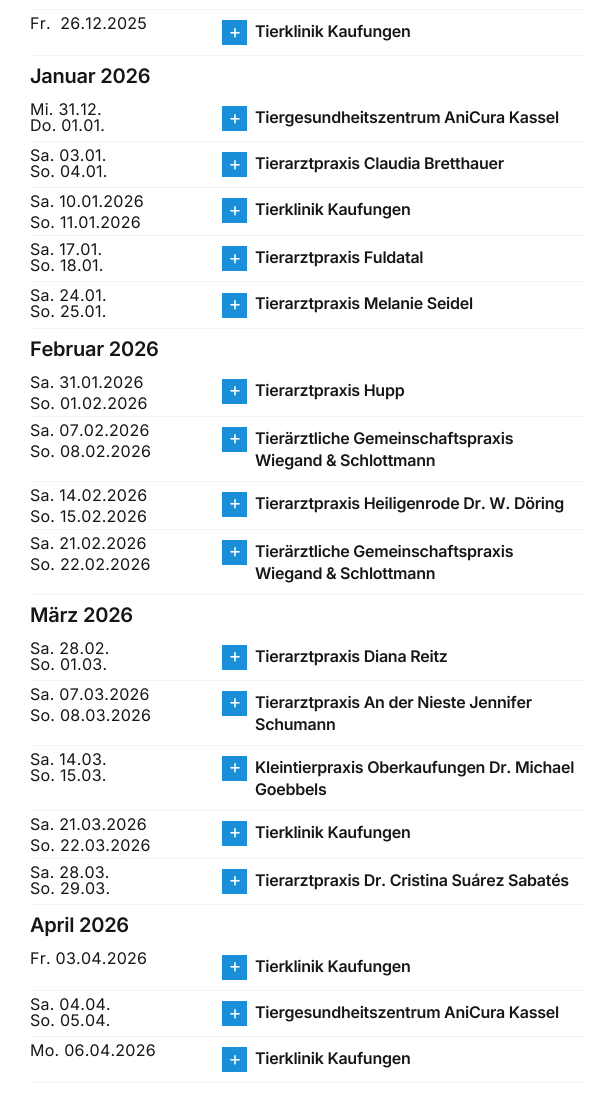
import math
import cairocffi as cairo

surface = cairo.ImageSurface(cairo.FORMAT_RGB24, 614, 1094)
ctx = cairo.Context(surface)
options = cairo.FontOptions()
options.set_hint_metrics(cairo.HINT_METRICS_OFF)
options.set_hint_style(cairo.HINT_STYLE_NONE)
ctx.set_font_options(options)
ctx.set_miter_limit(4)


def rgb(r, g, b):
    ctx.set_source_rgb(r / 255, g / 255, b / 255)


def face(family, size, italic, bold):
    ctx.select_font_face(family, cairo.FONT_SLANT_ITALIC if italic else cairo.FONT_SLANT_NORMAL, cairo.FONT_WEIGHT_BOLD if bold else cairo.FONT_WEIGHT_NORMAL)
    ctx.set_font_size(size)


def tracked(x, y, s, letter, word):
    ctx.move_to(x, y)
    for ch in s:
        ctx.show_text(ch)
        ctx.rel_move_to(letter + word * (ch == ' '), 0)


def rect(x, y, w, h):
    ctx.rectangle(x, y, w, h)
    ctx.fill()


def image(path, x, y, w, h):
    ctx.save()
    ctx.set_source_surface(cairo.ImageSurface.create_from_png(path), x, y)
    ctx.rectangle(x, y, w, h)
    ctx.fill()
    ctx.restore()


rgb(255, 255, 255)
ctx.paint()
rgb(242, 243, 245)
rect(30, 9, 554, 1)
face('Inter', 16, 0, 0)
rgb(20, 22, 23)
tracked(30, 29, 'Fr.  26.12.2025', 0.25, 0)
rgb(25, 143, 217)
rect(222, 20, 25, 25)
image('image0.png', 230, 28, 10, 10)
face('Inter SemiBold', 16, 0, 0)
rgb(20, 22, 23)
tracked(255, 37, 'Tierklinik Kaufungen', -0.25, 0)
rgb(242, 243, 245)
rect(30, 55, 554, 1)
face('Inter SemiBold', 20, 0, 0)
rgb(20, 22, 23)
tracked(30, 83, 'Januar 2026', -0.25, 0)
face('Inter', 16, 0, 0)
tracked(30, 115, 'Mi. 31.12.', 0.25, 0)
tracked(30, 131, 'Do. 01.01.', 0.25, 0)
rgb(25, 143, 217)
rect(222, 106, 25, 25)
image('image0.png', 230, 114, 10, 10)
face('Inter SemiBold', 16, 0, 0)
rgb(20, 22, 23)
tracked(255, 123, 'Tiergesundheitszentrum AniCura Kassel', -0.25, 0)
rgb(242, 243, 245)
rect(30, 141, 554, 1)
face('Inter', 16, 0, 0)
rgb(20, 22, 23)
tracked(30, 161, 'Sa. 03.01.', 0.25, 0)
tracked(30, 177, 'So. 04.01.', 0.25, 0)
rgb(25, 143, 217)
rect(222, 152, 25, 25)
image('image0.png', 230, 160, 10, 10)
face('Inter SemiBold', 16, 0, 0)
rgb(20, 22, 23)
tracked(255, 169, 'Tierarztpraxis Claudia Bretthauer', -0.25, 0)
rgb(242, 243, 245)
rect(30, 187, 554, 1)
face('Inter', 16, 0, 0)
rgb(20, 22, 23)
tracked(30, 207, 'Sa. 10.01.2026', 0.25, 0)
tracked(30, 228, 'So. 11.01.2026', 0.25, 0)
rgb(25, 143, 217)
rect(222, 198, 25, 25)
image('image0.png', 230, 206, 10, 10)
face('Inter SemiBold', 16, 0, 0)
rgb(20, 22, 23)
tracked(255, 215, 'Tierklinik Kaufungen', -0.25, 0)
rgb(242, 243, 245)
rect(30, 235, 554, 1)
face('Inter', 16, 0, 0)
rgb(20, 22, 23)
tracked(30, 255, 'Sa. 17.01.', 0.25, 0)
tracked(30, 271, 'So. 18.01.', 0.25, 0)
rgb(25, 143, 217)
rect(222, 246, 25, 25)
image('image0.png', 230, 254, 10, 10)
face('Inter SemiBold', 16, 0, 0)
rgb(20, 22, 23)
tracked(255, 263, 'Tierarztpraxis Fuldatal', -0.25, 0)
rgb(242, 243, 245)
rect(30, 281, 554, 1)
face('Inter', 16, 0, 0)
rgb(20, 22, 23)
tracked(30, 301, 'Sa. 24.01.', 0.25, 0)
tracked(30, 317, 'So. 25.01.', 0.25, 0)
rgb(25, 143, 217)
rect(222, 293, 25, 25)
image('image0.png', 230, 300, 10, 10)
face('Inter SemiBold', 16, 0, 0)
rgb(20, 22, 23)
tracked(255, 309, 'Tierarztpraxis Melanie Seidel', -0.25, 0)
rgb(242, 243, 245)
rect(30, 328, 554, 1)
face('Inter SemiBold', 20, 0, 0)
rgb(20, 22, 23)
tracked(30, 356, 'Februar 2026', -0.25, 0)
face('Inter', 16, 0, 0)
tracked(30, 388, 'Sa. 31.01.2026', 0.25, 0)
tracked(30, 409, 'So. 01.02.2026', 0.25, 0)
rgb(25, 143, 217)
rect(222, 379, 25, 25)
image('image0.png', 230, 386, 10, 10)
face('Inter SemiBold', 16, 0, 0)
rgb(20, 22, 23)
tracked(255, 396, 'Tierarztpraxis Hupp', -0.25, 0)
rgb(242, 243, 245)
rect(30, 416, 554, 1)
face('Inter', 16, 0, 0)
rgb(20, 22, 23)
tracked(30, 436, 'Sa. 07.02.2026', 0.25, 0)
tracked(30, 457, 'So. 08.02.2026', 0.25, 0)
rgb(25, 143, 217)
rect(222, 427, 25, 25)
image('image0.png', 230, 434, 10, 10)
face('Inter SemiBold', 16, 0, 0)
rgb(20, 22, 23)
tracked(255, 444, 'Tierärztliche Gemeinschaftspraxis', -0.25, 0)
tracked(255, 466, 'Wiegand & Schlottmann', -0.25, 0)
rgb(242, 243, 245)
rect(30, 481, 554, 1)
face('Inter', 16, 0, 0)
rgb(20, 22, 23)
tracked(30, 501, 'Sa. 14.02.2026', 0.25, 0)
tracked(30, 522, 'So. 15.02.2026', 0.25, 0)
rgb(25, 143, 217)
rect(222, 492, 25, 25)
image('image0.png', 230, 499, 10, 10)
face('Inter SemiBold', 16, 0, 0)
rgb(20, 22, 23)
tracked(255, 509, 'Tierarztpraxis Heiligenrode Dr. W. Döring', -0.25, 0)
rgb(242, 243, 245)
rect(30, 529, 554, 1)
face('Inter', 16, 0, 0)
rgb(20, 22, 23)
tracked(30, 549, 'Sa. 21.02.2026', 0.25, 0)
tracked(30, 570, 'So. 22.02.2026', 0.25, 0)
rgb(25, 143, 217)
rect(222, 540, 25, 25)
image('image0.png', 230, 547, 10, 10)
face('Inter SemiBold', 16, 0, 0)
rgb(20, 22, 23)
tracked(255, 557, 'Tierärztliche Gemeinschaftspraxis', -0.25, 0)
tracked(255, 579, 'Wiegand & Schlottmann', -0.25, 0)
rgb(242, 243, 245)
rect(30, 594, 554, 1)
face('Inter SemiBold', 20, 0, 0)
rgb(20, 22, 23)
tracked(30, 622, 'März 2026', -0.25, 0)
face('Inter', 16, 0, 0)
tracked(30, 654, 'Sa. 28.02.', 0.25, 0)
tracked(30, 670, 'So. 01.03.', 0.25, 0)
rgb(25, 143, 217)
rect(222, 645, 25, 25)
image('image0.png', 230, 652, 10, 10)
face('Inter SemiBold', 16, 0, 0)
rgb(20, 22, 23)
tracked(255, 662, 'Tierarztpraxis Diana Reitz', -0.25, 0)
rgb(242, 243, 245)
rect(30, 680, 554, 1)
face('Inter', 16, 0, 0)
rgb(20, 22, 23)
tracked(30, 700, 'Sa. 07.03.2026', 0.25, 0)
tracked(30, 721, 'So. 08.03.2026', 0.25, 0)
rgb(25, 143, 217)
rect(222, 691, 25, 25)
image('image0.png', 230, 698, 10, 10)
face('Inter SemiBold', 16, 0, 0)
rgb(20, 22, 23)
tracked(255, 708, 'Tierarztpraxis An der Nieste Jennifer', -0.25, 0)
tracked(255, 730, 'Schumann', -0.25, 0)
rgb(242, 243, 245)
rect(30, 745, 554, 1)
face('Inter', 16, 0, 0)
rgb(20, 22, 23)
tracked(30, 765, 'Sa. 14.03.', 0.25, 0)
tracked(30, 781, 'So. 15.03.', 0.25, 0)
rgb(25, 143, 217)
rect(222, 756, 25, 25)
image('image0.png', 230, 763, 10, 10)
face('Inter SemiBold', 16, 0, 0)
rgb(20, 22, 23)
tracked(255, 773, 'Kleintierpraxis Oberkaufungen Dr. Michael', -0.25, 0)
tracked(255, 795, 'Goebbels', -0.25, 0)
rgb(242, 243, 245)
rect(30, 810, 554, 1)
face('Inter', 16, 0, 0)
rgb(20, 22, 23)
tracked(30, 830, 'Sa. 21.03.2026', 0.25, 0)
tracked(30, 851, 'So. 22.03.2026', 0.25, 0)
rgb(25, 143, 217)
rect(222, 821, 25, 25)
image('image0.png', 230, 828, 10, 10)
face('Inter SemiBold', 16, 0, 0)
rgb(20, 22, 23)
tracked(255, 838, 'Tierklinik Kaufungen', -0.25, 0)
rgb(242, 243, 245)
rect(30, 858, 554, 1)
face('Inter', 16, 0, 0)
rgb(20, 22, 23)
tracked(30, 878, 'Sa. 28.03.', 0.25, 0)
tracked(30, 894, 'So. 29.03.', 0.25, 0)
rgb(25, 143, 217)
rect(222, 869, 25, 25)
image('image0.png', 230, 876, 10, 10)
face('Inter SemiBold', 16, 0, 0)
rgb(20, 22, 23)
tracked(255, 886, 'Tierarztpraxis Dr. Cristina Suárez Sabatés', -0.25, 0)
rgb(242, 243, 245)
rect(30, 904, 554, 1)
face('Inter SemiBold', 20, 0, 0)
rgb(20, 22, 23)
tracked(30, 932, 'April 2026', -0.25, 0)
face('Inter', 16, 0, 0)
tracked(30, 964, 'Fr. 03.04.2026', 0.25, 0)
rgb(25, 143, 217)
rect(222, 955, 25, 25)
image('image0.png', 230, 962, 10, 10)
face('Inter SemiBold', 16, 0, 0)
rgb(20, 22, 23)
tracked(255, 972, 'Tierklinik Kaufungen', -0.25, 0)
rgb(242, 243, 245)
rect(30, 990, 554, 1)
face('Inter', 16, 0, 0)
rgb(20, 22, 23)
tracked(30, 1010, 'Sa. 04.04.', 0.25, 0)
tracked(30, 1026, 'So. 05.04.', 0.25, 0)
rgb(25, 143, 217)
rect(222, 1001, 25, 25)
image('image0.png', 230, 1009, 10, 10)
face('Inter SemiBold', 16, 0, 0)
rgb(20, 22, 23)
tracked(255, 1018, 'Tiergesundheitszentrum AniCura Kassel', -0.25, 0)
rgb(242, 243, 245)
rect(30, 1036, 554, 1)
face('Inter', 16, 0, 0)
rgb(20, 22, 23)
tracked(30, 1056, 'Mo. 06.04.2026', 0.25, 0)
rgb(25, 143, 217)
rect(222, 1047, 25, 25)
image('image0.png', 230, 1055, 10, 10)
face('Inter SemiBold', 16, 0, 0)
rgb(20, 22, 23)
tracked(255, 1064, 'Tierklinik Kaufungen', -0.25, 0)
rgb(242, 243, 245)
rect(30, 1082, 554, 1)
surface.write_to_png('render.png')
